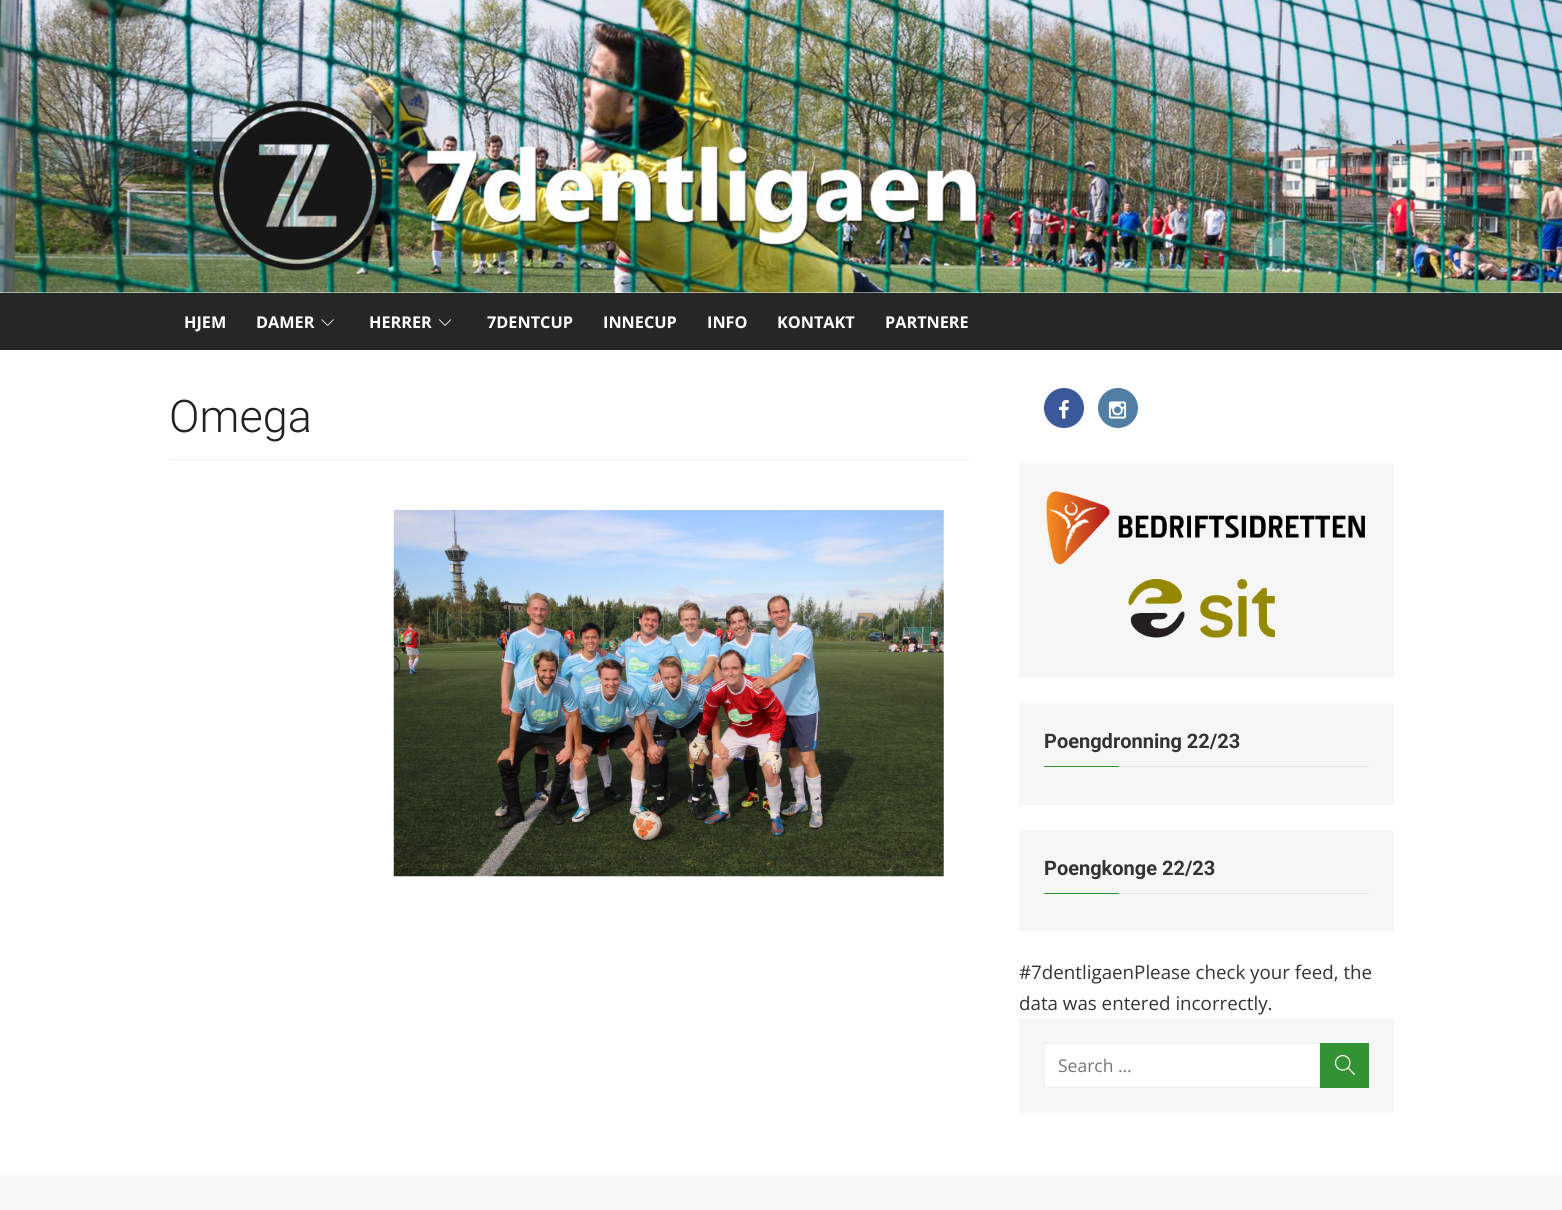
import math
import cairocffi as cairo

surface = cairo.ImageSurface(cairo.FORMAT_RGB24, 1562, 1210)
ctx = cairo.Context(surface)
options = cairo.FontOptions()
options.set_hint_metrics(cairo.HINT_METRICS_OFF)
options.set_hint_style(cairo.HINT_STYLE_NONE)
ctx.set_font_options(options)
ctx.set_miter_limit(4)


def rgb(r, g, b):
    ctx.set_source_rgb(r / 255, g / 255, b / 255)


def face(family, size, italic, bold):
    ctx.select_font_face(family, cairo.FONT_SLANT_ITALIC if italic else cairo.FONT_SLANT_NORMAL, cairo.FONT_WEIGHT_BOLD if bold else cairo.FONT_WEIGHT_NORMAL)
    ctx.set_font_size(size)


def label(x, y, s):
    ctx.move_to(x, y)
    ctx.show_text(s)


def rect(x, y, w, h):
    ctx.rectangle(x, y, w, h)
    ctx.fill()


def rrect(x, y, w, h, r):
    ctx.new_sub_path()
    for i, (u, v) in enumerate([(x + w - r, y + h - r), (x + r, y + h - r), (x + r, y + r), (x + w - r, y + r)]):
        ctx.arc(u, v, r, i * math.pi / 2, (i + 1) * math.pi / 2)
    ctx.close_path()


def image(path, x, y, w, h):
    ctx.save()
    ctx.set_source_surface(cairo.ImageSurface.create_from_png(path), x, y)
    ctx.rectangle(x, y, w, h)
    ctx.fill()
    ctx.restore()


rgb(255, 255, 255)
ctx.paint()
image('image0.png', 0, 0, 1562, 293)
rgb(37, 38, 38)
rect(0, 293, 1562, 57)
face('Open Sans', 16.25, 0, 1)
rgb(255, 255, 255)
label(184, 328, 'HJEM')
label(256, 328, 'DAMER')
image('image1.png', 321, 319, 13, 7)
label(369, 328, 'HERRER')
image('image2.png', 438, 319, 14, 7)
label(487, 328, '7DENTCUP')
label(603, 328, 'INNECUP')
label(707, 328, 'INFO')
label(777, 328, 'KONTAKT')
label(885, 328, 'PARTNERE')
rgb(238, 238, 238)
rect(169, 459, 800, 1)
face('Roboto Light', 45, 0, 0)
rgb(34, 34, 34)
label(169, 432, 'Omega')
image('image3.png', 393, 510, 551, 367)
rgb(59, 89, 152)
ctx.arc(1064, 408, 20, 0, 2 * math.pi)
ctx.fill()
image('image4.png', 1059, 400, 10, 19)
rgb(81, 127, 164)
ctx.arc(1118, 408, 20, 0, 2 * math.pi)
ctx.fill()
image('image5.png', 1108, 401, 19, 18)
rgb(246, 246, 246)
rrect(1019, 463, 375, 215, 2.5)
ctx.fill()
image('image6.png', 1046, 491, 319, 147)
rrect(1019, 703, 375, 102, 2.5)
ctx.fill()
rgb(232, 232, 232)
rect(1119, 766, 250, 1)
face('Roboto', 20, 0, 1)
rgb(51, 51, 51)
label(1044, 748, 'Poengdronning 22/23')
rgb(51, 147, 50)
rect(1044, 766, 75, 1)
rgb(246, 246, 246)
rrect(1019, 830, 375, 101, 2.5)
ctx.fill()
rgb(232, 232, 232)
rect(1119, 893, 250, 1)
rgb(51, 51, 51)
label(1044, 875, 'Poengkonge 22/23')
rgb(51, 147, 50)
rect(1044, 893, 75, 1)
face('Open Sans', 18.75, 0, 0)
rgb(51, 51, 51)
label(1019, 979, '#7dentligaenPlease check your feed, the')
label(1019, 1010, 'data was entered incorrectly.')
rgb(246, 246, 246)
rrect(1019, 1018, 375, 95, 2.5)
ctx.fill()
rgb(255, 255, 255)
ctx.rectangle(1044.5, 1043.5, 275, 44)
ctx.fill_preserve()
rgb(238, 238, 238)
ctx.set_line_width(1)
ctx.stroke()
face('Open Sans', 17.5, 0, 0)
rgb(117, 117, 117)
label(1058, 1072, 'Search …')
rgb(51, 147, 50)
rect(1320, 1043, 49, 45)
image('image7.png', 1334, 1055, 21, 20)
rgb(248, 248, 248)
rect(0, 1175, 1562, 35)
surface.write_to_png('render.png')
